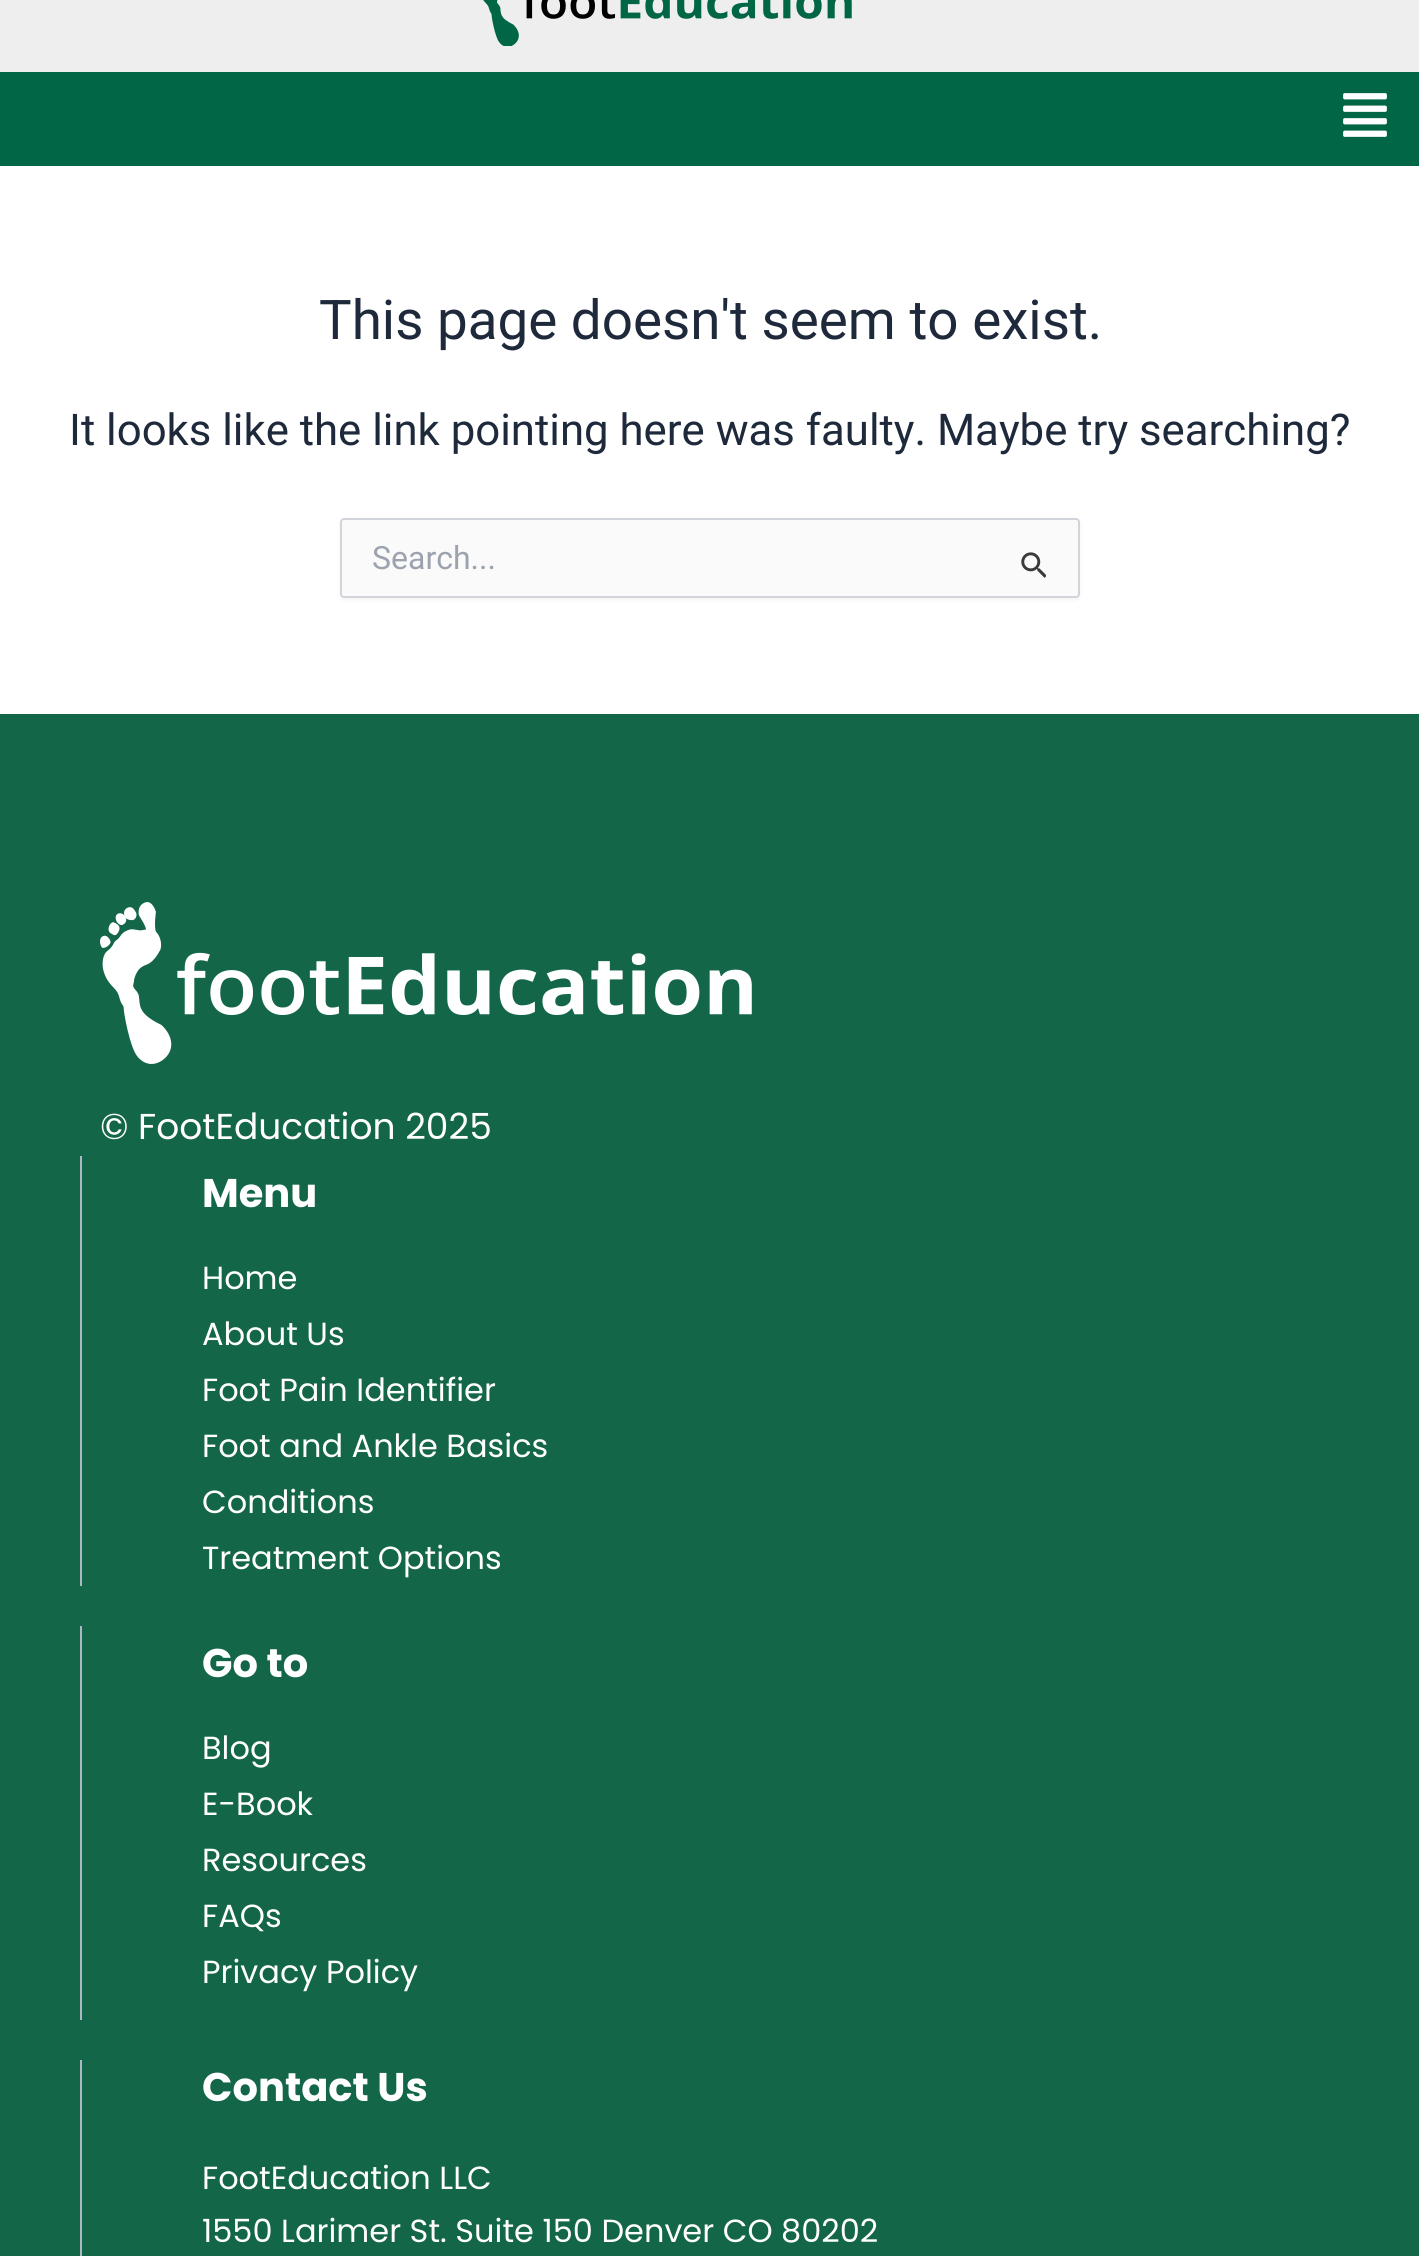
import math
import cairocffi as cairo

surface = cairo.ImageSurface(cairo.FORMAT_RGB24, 1419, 2256)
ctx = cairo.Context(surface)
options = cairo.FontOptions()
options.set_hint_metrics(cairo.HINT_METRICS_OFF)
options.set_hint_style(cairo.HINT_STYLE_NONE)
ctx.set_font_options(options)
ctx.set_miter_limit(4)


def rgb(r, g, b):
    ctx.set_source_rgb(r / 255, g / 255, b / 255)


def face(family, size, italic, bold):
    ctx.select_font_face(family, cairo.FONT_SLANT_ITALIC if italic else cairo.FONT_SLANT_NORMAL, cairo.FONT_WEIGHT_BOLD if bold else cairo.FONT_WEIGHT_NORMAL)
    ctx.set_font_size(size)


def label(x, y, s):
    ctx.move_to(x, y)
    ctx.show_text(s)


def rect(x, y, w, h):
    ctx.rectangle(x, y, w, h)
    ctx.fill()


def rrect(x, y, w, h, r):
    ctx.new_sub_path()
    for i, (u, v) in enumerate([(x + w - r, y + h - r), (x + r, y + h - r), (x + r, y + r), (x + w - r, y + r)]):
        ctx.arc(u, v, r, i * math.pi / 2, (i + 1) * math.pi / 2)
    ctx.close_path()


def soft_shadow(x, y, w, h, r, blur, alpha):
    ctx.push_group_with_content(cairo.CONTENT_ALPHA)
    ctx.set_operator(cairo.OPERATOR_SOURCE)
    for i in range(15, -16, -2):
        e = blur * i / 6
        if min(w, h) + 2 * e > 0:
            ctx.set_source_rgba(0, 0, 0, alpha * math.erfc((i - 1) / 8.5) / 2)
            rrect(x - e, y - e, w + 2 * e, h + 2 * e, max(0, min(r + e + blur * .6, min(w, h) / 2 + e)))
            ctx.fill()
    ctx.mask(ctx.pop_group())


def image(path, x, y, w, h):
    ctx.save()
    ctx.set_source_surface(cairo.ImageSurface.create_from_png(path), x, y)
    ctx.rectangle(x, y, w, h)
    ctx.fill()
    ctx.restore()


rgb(255, 255, 255)
ctx.paint()
rgb(238, 238, 238)
rect(0, 0, 1419, 72)
image('image0.png', 483, 0, 369, 46)
rgb(0, 102, 69)
rect(0, 72, 1419, 94)
image('image1.png', 1343, 93, 44, 44)
face('Roboto', 54.75, 0, 0)
rgb(30, 41, 59)
label(319, 339, 'This page doesn\'t seem to exist.')
face('Roboto', 43.75, 0, 0)
label(69, 445, 'It looks like the link pointing here was faulty. Maybe try searching?')
rgb(0, 0, 0)
soft_shadow(340, 520, 740, 80, 4, 2, 0.05)
rgb(250, 250, 250)
rrect(341, 519, 738, 78, 3)
ctx.fill_preserve()
rgb(209, 213, 219)
ctx.stroke()
face('Roboto', 32, 0, 0)
rgb(156, 163, 175)
label(372, 569, 'Search...')
image('image2.png', 1021, 552, 25, 26)
rgb(19, 102, 71)
rect(0, 714, 1419, 1542)
image('image3.png', 100, 902, 652, 162)
face('Poppins', 36, 0, 0)
rgb(255, 255, 255)
label(100, 1139, '© FootEducation 2025')
rgb(171, 184, 195)
rect(80, 1156, 2, 430)
face('Poppins', 40, 0, 1)
rgb(255, 255, 255)
label(202, 1207, 'Menu')
face('Poppins', 32, 0, 0)
label(202, 1289, 'Home')
label(202, 1345, 'About Us')
label(202, 1401, 'Foot Pain Identifier')
label(202, 1457, 'Foot and Ankle Basics')
label(202, 1513, 'Conditions')
label(202, 1569, 'Treatment Options')
rgb(171, 184, 195)
rect(80, 1626, 2, 394)
face('Poppins', 40, 0, 1)
rgb(255, 255, 255)
label(202, 1677, 'Go to')
face('Poppins', 32, 0, 0)
label(202, 1759, 'Blog')
label(202, 1815, 'E-Book')
label(202, 1871, 'Resources')
label(202, 1927, 'FAQs')
label(202, 1983, 'Privacy Policy')
rgb(171, 184, 195)
rect(80, 2060, 2, 196)
face('Poppins', 40, 0, 1)
rgb(255, 255, 255)
label(202, 2101, 'Contact Us')
face('Poppins', 32, 0, 0)
label(202, 2189, 'FootEducation LLC')
label(202, 2242, '1550 Larimer St. Suite 150 Denver CO 80202')
surface.write_to_png('render.png')
